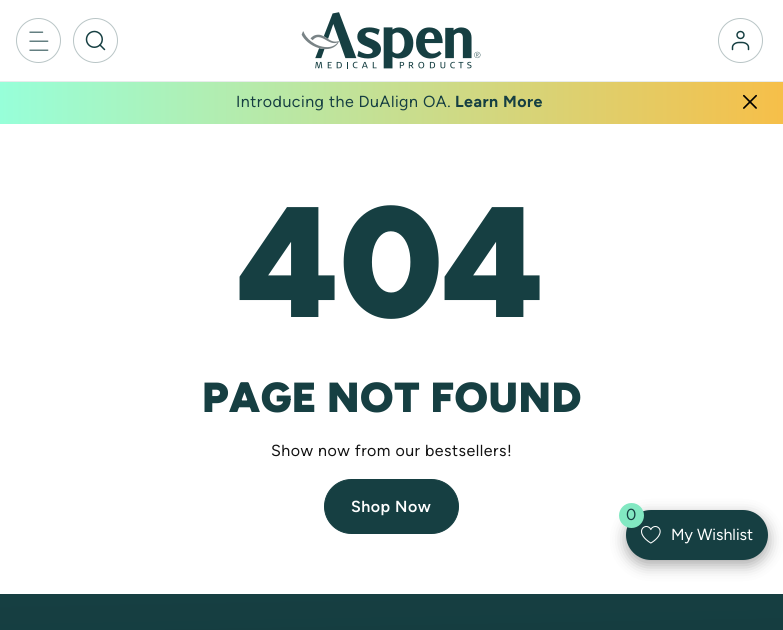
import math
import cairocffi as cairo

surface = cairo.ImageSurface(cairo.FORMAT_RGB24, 783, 630)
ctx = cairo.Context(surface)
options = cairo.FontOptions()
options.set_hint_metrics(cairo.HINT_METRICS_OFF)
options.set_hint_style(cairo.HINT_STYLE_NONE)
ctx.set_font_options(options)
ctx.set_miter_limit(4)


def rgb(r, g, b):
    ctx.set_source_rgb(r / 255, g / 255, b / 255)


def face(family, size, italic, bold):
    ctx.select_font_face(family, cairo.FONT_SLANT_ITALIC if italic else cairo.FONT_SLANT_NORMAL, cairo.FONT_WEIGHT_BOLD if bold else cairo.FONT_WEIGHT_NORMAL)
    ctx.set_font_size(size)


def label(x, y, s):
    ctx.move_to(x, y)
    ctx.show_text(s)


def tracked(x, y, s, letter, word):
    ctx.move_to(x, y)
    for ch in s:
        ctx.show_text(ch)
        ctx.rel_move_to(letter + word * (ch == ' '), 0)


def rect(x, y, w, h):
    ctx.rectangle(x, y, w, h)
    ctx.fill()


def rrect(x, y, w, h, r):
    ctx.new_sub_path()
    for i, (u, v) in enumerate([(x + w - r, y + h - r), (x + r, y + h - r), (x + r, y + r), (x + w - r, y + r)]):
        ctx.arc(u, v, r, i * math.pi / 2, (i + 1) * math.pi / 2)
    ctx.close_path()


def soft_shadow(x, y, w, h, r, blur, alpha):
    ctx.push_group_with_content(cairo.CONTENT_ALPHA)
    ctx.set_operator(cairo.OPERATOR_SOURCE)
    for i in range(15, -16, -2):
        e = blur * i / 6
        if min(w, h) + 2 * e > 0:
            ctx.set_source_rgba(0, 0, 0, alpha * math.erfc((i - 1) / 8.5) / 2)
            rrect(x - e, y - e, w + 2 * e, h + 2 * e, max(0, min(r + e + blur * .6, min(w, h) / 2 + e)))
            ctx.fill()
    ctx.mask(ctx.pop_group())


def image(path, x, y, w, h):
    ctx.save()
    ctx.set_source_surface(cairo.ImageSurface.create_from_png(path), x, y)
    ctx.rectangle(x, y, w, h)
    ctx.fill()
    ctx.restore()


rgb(255, 255, 255)
ctx.paint()
rgb(232, 236, 236)
rect(0, 81, 783, 1)
ctx.arc(38.5, 40.5, 22, 0, 2 * math.pi)
rgb(185, 197, 198)
ctx.set_line_width(1)
ctx.stroke()
image('image0.png', 29, 31, 20, 20)
ctx.arc(95.5, 40.5, 22, 0, 2 * math.pi)
ctx.stroke()
image('image1.png', 85, 30, 21, 21)
image('image2.png', 301, 12, 180, 57)
ctx.arc(740.5, 40.5, 22, 0, 2 * math.pi)
ctx.stroke()
image('image3.png', 731, 30, 19, 21)
gradient = cairo.LinearGradient(0, 103, 783, 103)
gradient.add_color_stop_rgba(0, 0.592, 1, 0.851, 1)
gradient.add_color_stop_rgba(1, 0.965, 0.749, 0.286, 1)
ctx.set_source(gradient)
rect(0, 82, 783, 42)
face('Figtree', 16, 0, 0)
rgb(22, 63, 66)
tracked(236, 107, 'Introducing the DuAlign OA.', 0.5, 0)
face('Figtree', 16, 0, 1)
tracked(455, 107, 'Learn More', 0.5, 0)
image('image4.png', 743, 94, 14, 15)
face('Figtree Black', 157, 0, 0)
tracked(238, 317, '404', 0.5, 0)
face('Figtree Black', 42, 0, 0)
tracked(202, 412, 'PAGE NOT FOUND', 0.5, 0)
face('Figtree', 16, 0, 0)
rgb(18, 18, 18)
tracked(271, 456, 'Show now from our bestsellers!', 0.5, 0)
rgb(22, 63, 66)
rrect(324.5, 479.5, 134, 54, 27)
ctx.fill_preserve()
ctx.stroke()
face('Figtree SemiBold', 16, 0, 0)
rgb(255, 255, 255)
tracked(351, 512, 'Shop Now', 0.5, 0)
rgb(0, 0, 0)
soft_shadow(626, 515, 142, 50, 25, 7.5, 0.35)
rgb(22, 63, 66)
rrect(626, 510, 142, 50, 25)
ctx.fill()
image('image5.png', 641, 526, 20, 18)
rgb(130, 232, 194)
ctx.arc(631.5, 515.5, 12.5, 0, 2 * math.pi)
ctx.fill()
face('Figtree', 16, 0, 0)
rgb(22, 63, 66)
label(626, 520, '0')
rgb(255, 255, 255)
label(671, 540, 'My Wishlist')
gradient = cairo.LinearGradient(385, 587, 398, 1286)
gradient.add_color_stop_rgba(0, 0.086, 0.247, 0.259, 1)
gradient.add_color_stop_rgba(1, 0.047, 0.141, 0.149, 1)
ctx.set_source(gradient)
rect(0, 594, 783, 36)
surface.write_to_png('render.png')
